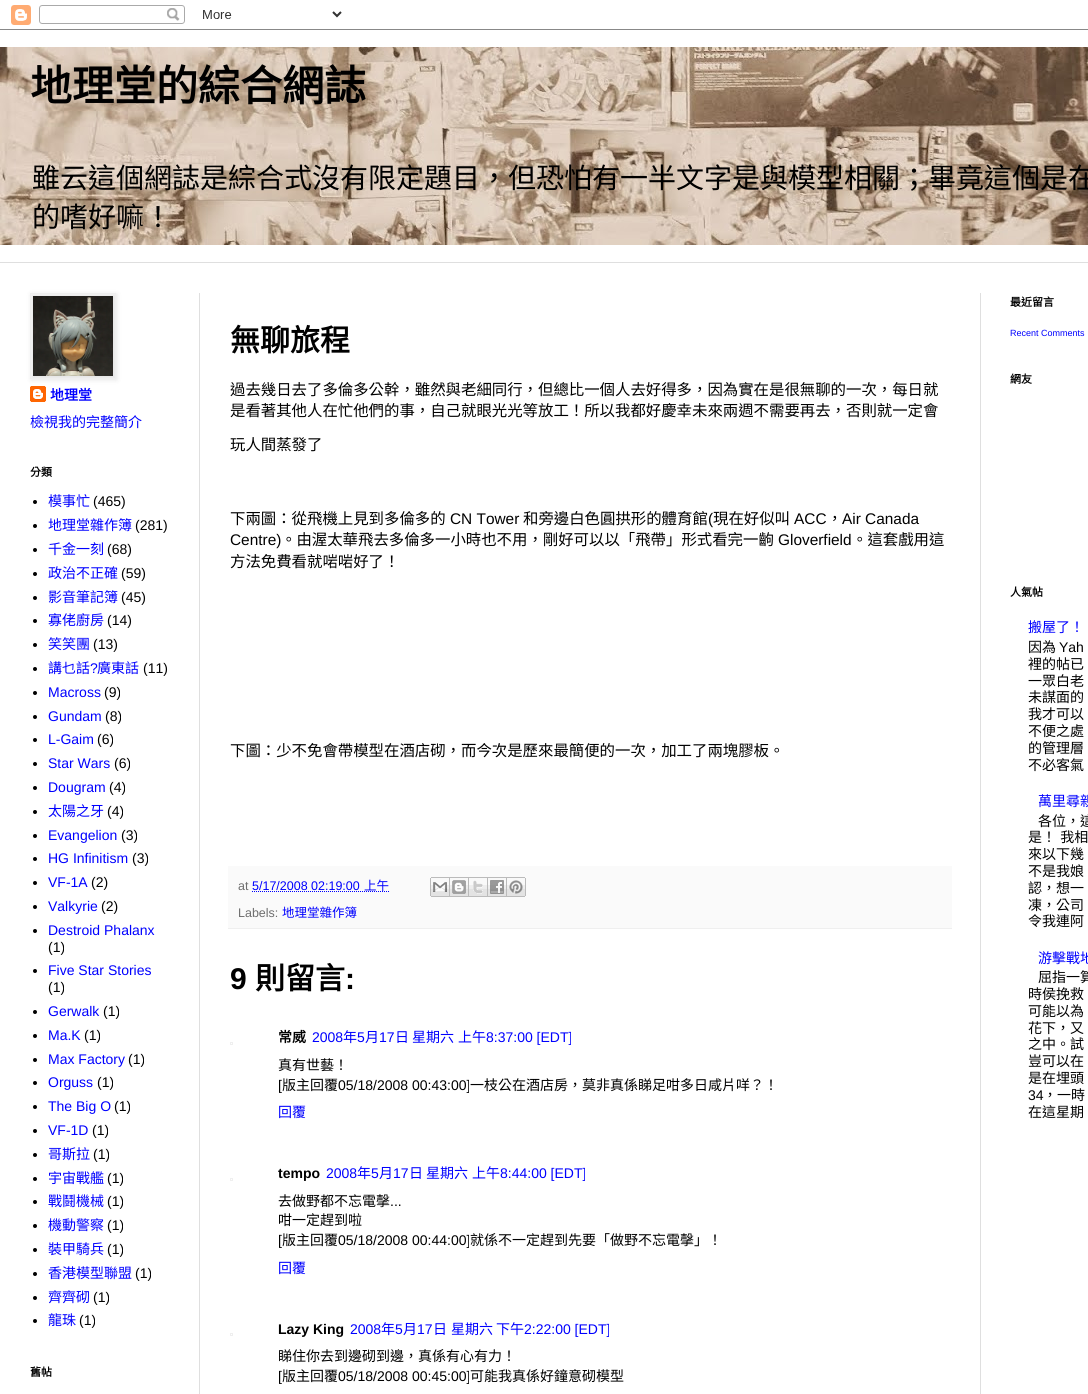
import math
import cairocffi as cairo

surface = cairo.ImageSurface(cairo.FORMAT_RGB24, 1088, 1394)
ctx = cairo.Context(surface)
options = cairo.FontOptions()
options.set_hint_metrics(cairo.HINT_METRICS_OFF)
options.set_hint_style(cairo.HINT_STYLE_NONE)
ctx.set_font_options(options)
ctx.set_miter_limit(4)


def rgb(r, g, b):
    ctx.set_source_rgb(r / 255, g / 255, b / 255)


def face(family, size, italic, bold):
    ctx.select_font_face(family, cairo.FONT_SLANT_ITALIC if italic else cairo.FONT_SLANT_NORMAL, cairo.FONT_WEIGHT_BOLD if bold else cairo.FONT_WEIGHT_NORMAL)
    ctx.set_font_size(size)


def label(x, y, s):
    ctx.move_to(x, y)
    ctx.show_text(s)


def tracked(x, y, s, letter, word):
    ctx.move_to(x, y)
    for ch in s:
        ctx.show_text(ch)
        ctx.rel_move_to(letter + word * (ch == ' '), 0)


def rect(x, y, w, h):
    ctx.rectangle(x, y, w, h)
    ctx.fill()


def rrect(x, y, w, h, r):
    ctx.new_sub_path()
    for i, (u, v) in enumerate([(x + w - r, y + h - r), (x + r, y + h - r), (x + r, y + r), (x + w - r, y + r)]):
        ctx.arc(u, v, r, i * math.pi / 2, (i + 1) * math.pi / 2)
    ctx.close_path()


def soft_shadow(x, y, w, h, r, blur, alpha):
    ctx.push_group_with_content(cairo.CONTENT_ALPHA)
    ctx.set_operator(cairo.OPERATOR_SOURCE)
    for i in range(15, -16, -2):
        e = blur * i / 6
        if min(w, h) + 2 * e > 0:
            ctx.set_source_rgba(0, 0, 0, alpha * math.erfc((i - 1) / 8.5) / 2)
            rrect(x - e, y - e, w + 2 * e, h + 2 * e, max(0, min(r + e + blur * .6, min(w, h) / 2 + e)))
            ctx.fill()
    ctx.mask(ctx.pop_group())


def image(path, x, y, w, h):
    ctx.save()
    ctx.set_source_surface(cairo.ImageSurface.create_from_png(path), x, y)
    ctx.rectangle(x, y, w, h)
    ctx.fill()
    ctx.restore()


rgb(255, 255, 255)
ctx.paint()
image('image0.png', 0, 5, 1088, 25)
image('image1.png', 0, 47, 1088, 198)
face('Noto Sans CJK TC', 42, 0, 1)
rgb(0, 0, 0)
label(30, 101, '地理堂的綜合網誌')
face('Noto Sans CJK TC', 28, 0, 0)
label(32, 188, '雖云這個網誌是綜合式沒有限定題目，但恐怕有一半文字是與模型相關；畢竟這個是在')
label(32, 227, '的嗜好嘛！')
rgb(223, 223, 223)
rect(0, 262, 1088, 1)
rect(199, 293, 1, 1101)
rect(980, 293, 1, 1101)
image('image3.png', 30, 386, 16, 16)
rgb(0, 0, 0)
soft_shadow(31, 294, 86, 86, 0, 2.5, 0.1)
ctx.rectangle(30.5, 293.5, 85, 85)
rgb(239, 239, 239)
ctx.set_line_width(1)
ctx.stroke()
image('image2.png', 33, 296, 80, 80)
face('Noto Sans CJK TC', 14, 0, 1)
rgb(0, 0, 255)
label(50, 400, '地理堂')
face('Noto Sans CJK TC', 14, 0, 0)
label(30, 427, '檢視我的完整簡介')
face('Noto Sans CJK TC', 11, 0, 1)
rgb(0, 0, 0)
label(30, 476, '分類')
ctx.new_path()
ctx.arc(35, 502, 2, 0, 2 * math.pi)
ctx.fill()
face('Noto Sans CJK TC', 14, 0, 0)
rgb(0, 0, 255)
label(48, 506, '模事忙')
face('Liberation Sans', 14, 0, 0)
rgb(0, 0, 0)
label(93, 506, '(465)')
ctx.new_path()
ctx.arc(35, 526, 2, 0, 2 * math.pi)
ctx.fill()
face('Noto Sans CJK TC', 14, 0, 0)
rgb(0, 0, 255)
label(48, 530, '地理堂雜作簿')
face('Liberation Sans', 14, 0, 0)
rgb(0, 0, 0)
label(135, 530, '(281)')
ctx.new_path()
ctx.arc(35, 550, 2, 0, 2 * math.pi)
ctx.fill()
face('Noto Sans CJK TC', 14, 0, 0)
rgb(0, 0, 255)
label(48, 554, '千金一刻')
face('Liberation Sans', 14, 0, 0)
rgb(0, 0, 0)
label(107, 554, '(68)')
ctx.new_path()
ctx.arc(35, 574, 2, 0, 2 * math.pi)
ctx.fill()
face('Noto Sans CJK TC', 14, 0, 0)
rgb(0, 0, 255)
label(48, 578, '政治不正確')
face('Liberation Sans', 14, 0, 0)
rgb(0, 0, 0)
label(121, 578, '(59)')
ctx.new_path()
ctx.arc(35, 598, 2, 0, 2 * math.pi)
ctx.fill()
face('Noto Sans CJK TC', 14, 0, 0)
rgb(0, 0, 255)
label(48, 602, '影音筆記簿')
face('Liberation Sans', 14, 0, 0)
rgb(0, 0, 0)
label(121, 602, '(45)')
ctx.new_path()
ctx.arc(35, 621, 2, 0, 2 * math.pi)
ctx.fill()
face('Noto Sans CJK TC', 14, 0, 0)
rgb(0, 0, 255)
label(48, 625, '寡佬廚房')
face('Liberation Sans', 14, 0, 0)
rgb(0, 0, 0)
label(107, 625, '(14)')
ctx.new_path()
ctx.arc(35, 645, 2, 0, 2 * math.pi)
ctx.fill()
face('Noto Sans CJK TC', 14, 0, 0)
rgb(0, 0, 255)
label(48, 649, '笑笑團')
face('Liberation Sans', 14, 0, 0)
rgb(0, 0, 0)
label(93, 649, '(13)')
ctx.new_path()
ctx.arc(35, 669, 2, 0, 2 * math.pi)
ctx.fill()
face('Noto Sans CJK TC', 14, 0, 0)
rgb(0, 0, 255)
label(48, 673, '講乜話')
face('Liberation Sans', 14, 0, 0)
label(90, 673, '?')
face('Noto Sans CJK TC', 14, 0, 0)
label(97, 673, '廣東話')
face('Liberation Sans', 14, 0, 0)
rgb(0, 0, 0)
label(143, 673, '(11)')
ctx.new_path()
ctx.arc(35, 693, 2, 0, 2 * math.pi)
ctx.fill()
rgb(0, 0, 255)
label(48, 697, 'Macross')
rgb(0, 0, 0)
label(104, 697, '(9)')
ctx.new_path()
ctx.arc(35, 717, 2, 0, 2 * math.pi)
ctx.fill()
rgb(0, 0, 255)
label(48, 721, 'Gundam')
rgb(0, 0, 0)
label(105, 721, '(8)')
ctx.new_path()
ctx.arc(35, 740, 2, 0, 2 * math.pi)
ctx.fill()
rgb(0, 0, 255)
label(48, 744, 'L-Gaim')
rgb(0, 0, 0)
label(97, 744, '(6)')
ctx.new_path()
ctx.arc(35, 764, 2, 0, 2 * math.pi)
ctx.fill()
rgb(0, 0, 255)
label(48, 768, 'Star Wars')
rgb(0, 0, 0)
label(114, 768, '(6)')
ctx.new_path()
ctx.arc(35, 788, 2, 0, 2 * math.pi)
ctx.fill()
rgb(0, 0, 255)
label(48, 792, 'Dougram')
rgb(0, 0, 0)
label(109, 792, '(4)')
ctx.new_path()
ctx.arc(35, 812, 2, 0, 2 * math.pi)
ctx.fill()
face('Noto Sans CJK TC', 14, 0, 0)
rgb(0, 0, 255)
label(48, 816, '太陽之牙')
face('Liberation Sans', 14, 0, 0)
rgb(0, 0, 0)
label(107, 816, '(4)')
ctx.new_path()
ctx.arc(35, 836, 2, 0, 2 * math.pi)
ctx.fill()
rgb(0, 0, 255)
label(48, 840, 'Evangelion')
rgb(0, 0, 0)
label(121, 840, '(3)')
ctx.new_path()
ctx.arc(35, 859, 2, 0, 2 * math.pi)
ctx.fill()
rgb(0, 0, 255)
label(48, 863, 'HG Infinitism')
rgb(0, 0, 0)
label(132, 863, '(3)')
ctx.new_path()
ctx.arc(35, 883, 2, 0, 2 * math.pi)
ctx.fill()
rgb(0, 0, 255)
label(48, 887, 'VF-1A')
rgb(0, 0, 0)
label(91, 887, '(2)')
ctx.new_path()
ctx.arc(35, 907, 2, 0, 2 * math.pi)
ctx.fill()
rgb(0, 0, 255)
label(48, 911, 'Valkyrie')
rgb(0, 0, 0)
label(101, 911, '(2)')
ctx.new_path()
ctx.arc(35, 931, 2, 0, 2 * math.pi)
ctx.fill()
rgb(0, 0, 255)
label(48, 935, 'Destroid Phalanx')
rgb(0, 0, 0)
label(48, 952, '(1)')
ctx.new_path()
ctx.arc(35, 971, 2, 0, 2 * math.pi)
ctx.fill()
rgb(0, 0, 255)
label(48, 975, 'Five Star Stories')
rgb(0, 0, 0)
label(48, 992, '(1)')
ctx.new_path()
ctx.arc(35, 1012, 2, 0, 2 * math.pi)
ctx.fill()
rgb(0, 0, 255)
label(48, 1016, 'Gerwalk')
rgb(0, 0, 0)
label(103, 1016, '(1)')
ctx.new_path()
ctx.arc(35, 1036, 2, 0, 2 * math.pi)
ctx.fill()
rgb(0, 0, 255)
label(48, 1040, 'Ma.K')
rgb(0, 0, 0)
label(84, 1040, '(1)')
ctx.new_path()
ctx.arc(35, 1060, 2, 0, 2 * math.pi)
ctx.fill()
rgb(0, 0, 255)
label(48, 1064, 'Max Factory')
rgb(0, 0, 0)
label(128, 1064, '(1)')
ctx.new_path()
ctx.arc(35, 1083, 2, 0, 2 * math.pi)
ctx.fill()
rgb(0, 0, 255)
label(48, 1087, 'Orguss')
rgb(0, 0, 0)
label(97, 1087, '(1)')
ctx.new_path()
ctx.arc(35, 1107, 2, 0, 2 * math.pi)
ctx.fill()
rgb(0, 0, 255)
label(48, 1111, 'The Big O')
rgb(0, 0, 0)
label(114, 1111, '(1)')
ctx.new_path()
ctx.arc(35, 1131, 2, 0, 2 * math.pi)
ctx.fill()
rgb(0, 0, 255)
label(48, 1135, 'VF-1D')
rgb(0, 0, 0)
label(92, 1135, '(1)')
ctx.new_path()
ctx.arc(35, 1155, 2, 0, 2 * math.pi)
ctx.fill()
face('Noto Sans CJK TC', 14, 0, 0)
rgb(0, 0, 255)
label(48, 1159, '哥斯拉')
face('Liberation Sans', 14, 0, 0)
rgb(0, 0, 0)
label(93, 1159, '(1)')
ctx.new_path()
ctx.arc(35, 1179, 2, 0, 2 * math.pi)
ctx.fill()
face('Noto Sans CJK TC', 14, 0, 0)
rgb(0, 0, 255)
label(48, 1183, '宇宙戰艦')
face('Liberation Sans', 14, 0, 0)
rgb(0, 0, 0)
label(107, 1183, '(1)')
ctx.new_path()
ctx.arc(35, 1202, 2, 0, 2 * math.pi)
ctx.fill()
face('Noto Sans CJK TC', 14, 0, 0)
rgb(0, 0, 255)
label(48, 1206, '戰鬪機械')
face('Liberation Sans', 14, 0, 0)
rgb(0, 0, 0)
label(107, 1206, '(1)')
ctx.new_path()
ctx.arc(35, 1226, 2, 0, 2 * math.pi)
ctx.fill()
face('Noto Sans CJK TC', 14, 0, 0)
rgb(0, 0, 255)
label(48, 1230, '機動警察')
face('Liberation Sans', 14, 0, 0)
rgb(0, 0, 0)
label(107, 1230, '(1)')
ctx.new_path()
ctx.arc(35, 1250, 2, 0, 2 * math.pi)
ctx.fill()
face('Noto Sans CJK TC', 14, 0, 0)
rgb(0, 0, 255)
label(48, 1254, '裝甲騎兵')
face('Liberation Sans', 14, 0, 0)
rgb(0, 0, 0)
label(107, 1254, '(1)')
ctx.new_path()
ctx.arc(35, 1274, 2, 0, 2 * math.pi)
ctx.fill()
face('Noto Sans CJK TC', 14, 0, 0)
rgb(0, 0, 255)
label(48, 1278, '香港模型聯盟')
face('Liberation Sans', 14, 0, 0)
rgb(0, 0, 0)
label(135, 1278, '(1)')
ctx.new_path()
ctx.arc(35, 1298, 2, 0, 2 * math.pi)
ctx.fill()
face('Noto Sans CJK TC', 14, 0, 0)
rgb(0, 0, 255)
label(48, 1302, '齊齊砌')
face('Liberation Sans', 14, 0, 0)
rgb(0, 0, 0)
label(93, 1302, '(1)')
ctx.new_path()
ctx.arc(35, 1321, 2, 0, 2 * math.pi)
ctx.fill()
face('Noto Sans CJK TC', 14, 0, 0)
rgb(0, 0, 255)
label(48, 1325, '龍珠')
face('Liberation Sans', 14, 0, 0)
rgb(0, 0, 0)
label(79, 1325, '(1)')
face('Noto Sans CJK TC', 11, 0, 1)
label(30, 1376, '舊帖')
face('Noto Sans CJK TC', 30, 0, 1)
label(230, 351, '無聊旅程')
face('Noto Sans CJK TC', 15.4, 0, 0)
label(230, 395, '過去幾日去了多倫多公幹，雖然與老細同行，但總比一個人去好得多，因為實在是很無聊的一次，每日就')
label(230, 416, '是看著其他人在忙他們的事，自己就眼光光等放工！所以我都好慶幸未來兩週不需要再去，否則就一定會')
label(230, 450, '玩人間蒸發了')
label(230, 524, '下兩圖：從飛機上見到多倫多的')
face('Liberation Sans', 15.4, 0, 0)
label(450, 524, 'CN Tower')
face('Noto Sans CJK TC', 15.4, 0, 0)
label(523, 524, '和旁邊白色圓拱形的體育館')
face('Liberation Sans', 15.4, 0, 0)
label(708, 524, '(')
face('Noto Sans CJK TC', 15.4, 0, 0)
label(713, 524, '現在好似叫')
face('Liberation Sans', 15.4, 0, 0)
label(794, 524, 'ACC')
face('Noto Sans CJK TC', 15.4, 0, 0)
label(827, 524, '，')
face('Liberation Sans', 15.4, 0, 0)
label(842, 524, 'Air Canada')
label(230, 545, 'Centre)')
face('Noto Sans CJK TC', 15.4, 0, 0)
label(281, 545, '。由渥太華飛去多倫多一小時也不用，剛好可以以「飛帶」形式看完一齣')
face('Liberation Sans', 15.4, 0, 0)
label(778, 545, 'Gloverfield')
face('Noto Sans CJK TC', 15.4, 0, 0)
label(852, 545, '。這套戲用這')
label(230, 567, '方法免費看就啱啱好了！')
label(230, 756, '下圖：少不免會帶模型在酒店砌，而今次是歷來最簡便的一次，加工了兩塊膠板。')
rgb(250, 250, 250)
rect(228, 866, 724, 62)
rgb(239, 239, 239)
rect(228, 928, 724, 1)
face('Liberation Sans', 12.5, 0, 0)
rgb(110, 110, 110)
label(238, 890, 'at')
rgb(0, 0, 255)
label(252, 890, '5/17/2008 02:19:00')
ctx.new_path()
ctx.move_to(252, 891.5)
ctx.line_to(389, 891.5)
ctx.set_dash([1, 1])
ctx.stroke()
face('Noto Sans CJK TC', 12.5, 0, 0)
label(364, 890, '上午')
image('image4.png', 430, 877, 20, 20)
image('image5.png', 450, 877, 19, 20)
image('image6.png', 469, 877, 19, 20)
image('image7.png', 488, 877, 19, 20)
image('image8.png', 507, 877, 19, 20)
face('Liberation Sans', 12.5, 0, 0)
rgb(110, 110, 110)
label(238, 917, 'Labels:')
face('Noto Sans CJK TC', 12.5, 0, 0)
rgb(0, 0, 255)
label(282, 917, '地理堂雜作簿')
face('Liberation Sans', 30, 0, 1)
rgb(0, 0, 0)
label(230, 989, '9')
face('Noto Sans CJK TC', 30, 0, 1)
label(255, 989, '則留言')
face('Liberation Sans', 30, 0, 1)
label(345, 989, ':')
ctx.rectangle(230.5, 1042.5, 2, 2)
rgb(239, 239, 239)
ctx.set_dash([])
ctx.stroke()
face('Noto Sans CJK TC', 14, 0, 1)
rgb(0, 0, 0)
label(278, 1042, '常威')
face('Liberation Sans', 14, 0, 0)
rgb(0, 0, 255)
label(312, 1042, '2008')
face('Noto Sans CJK TC', 14, 0, 0)
label(343, 1042, '年')
face('Liberation Sans', 14, 0, 0)
label(357, 1042, '5')
face('Noto Sans CJK TC', 14, 0, 0)
label(365, 1042, '月')
face('Liberation Sans', 14, 0, 0)
label(379, 1042, '17')
face('Noto Sans CJK TC', 14, 0, 0)
label(395, 1042, '日')
label(412, 1042, '星期六')
label(458, 1042, '上午')
face('Liberation Sans', 14, 0, 0)
label(486, 1042, '8:37:00 [EDT]')
face('Noto Sans CJK TC', 14, 0, 0)
rgb(0, 0, 0)
label(278, 1070, '真有世藝！')
face('Liberation Sans', 14, 0, 0)
label(278, 1090, '[')
face('Noto Sans CJK TC', 14, 0, 0)
label(282, 1090, '版主回覆')
face('Liberation Sans', 14, 0, 0)
label(338, 1090, '05/18/2008 00:43:00]')
face('Noto Sans CJK TC', 14, 0, 0)
label(470, 1090, '一枝公在酒店房，莫非真係睇足咁多日咸片咩？！')
rgb(0, 0, 255)
label(278, 1117, '回覆')
ctx.rectangle(230.5, 1178.5, 2, 2)
rgb(239, 239, 239)
ctx.stroke()
face('Liberation Sans', 14, 0, 1)
rgb(0, 0, 0)
label(278, 1178, 'tempo')
face('Liberation Sans', 14, 0, 0)
rgb(0, 0, 255)
label(326, 1178, '2008')
face('Noto Sans CJK TC', 14, 0, 0)
label(357, 1178, '年')
face('Liberation Sans', 14, 0, 0)
label(371, 1178, '5')
face('Noto Sans CJK TC', 14, 0, 0)
label(379, 1178, '月')
face('Liberation Sans', 14, 0, 0)
label(393, 1178, '17')
face('Noto Sans CJK TC', 14, 0, 0)
label(409, 1178, '日')
label(426, 1178, '星期六')
label(472, 1178, '上午')
face('Liberation Sans', 14, 0, 0)
label(500, 1178, '8:44:00 [EDT]')
face('Noto Sans CJK TC', 14, 0, 0)
rgb(0, 0, 0)
label(278, 1206, '去做野都不忘電撀')
face('Liberation Sans', 14, 0, 0)
label(390, 1206, '...')
face('Noto Sans CJK TC', 14, 0, 0)
label(278, 1225, '咁一定趕到啦')
face('Liberation Sans', 14, 0, 0)
label(278, 1245, '[')
face('Noto Sans CJK TC', 14, 0, 0)
label(282, 1245, '版主回覆')
face('Liberation Sans', 14, 0, 0)
label(338, 1245, '05/18/2008 00:44:00]')
face('Noto Sans CJK TC', 14, 0, 0)
label(470, 1245, '就係不一定趕到先要「做野不忘電撀」！')
rgb(0, 0, 255)
label(278, 1273, '回覆')
ctx.rectangle(230.5, 1333.5, 2, 2)
rgb(239, 239, 239)
ctx.stroke()
face('Liberation Sans', 14, 0, 1)
rgb(0, 0, 0)
label(278, 1334, 'Lazy King')
face('Liberation Sans', 14, 0, 0)
rgb(0, 0, 255)
label(350, 1334, '2008')
face('Noto Sans CJK TC', 14, 0, 0)
label(381, 1334, '年')
face('Liberation Sans', 14, 0, 0)
label(395, 1334, '5')
face('Noto Sans CJK TC', 14, 0, 0)
label(403, 1334, '月')
face('Liberation Sans', 14, 0, 0)
label(417, 1334, '17')
face('Noto Sans CJK TC', 14, 0, 0)
label(433, 1334, '日')
label(451, 1334, '星期六')
label(496, 1334, '下午')
face('Liberation Sans', 14, 0, 0)
label(524, 1334, '2:22:00 [EDT]')
face('Noto Sans CJK TC', 14, 0, 0)
rgb(0, 0, 0)
label(278, 1361, '睇住你去到邊砌到邊，真係有心有力！')
face('Liberation Sans', 14, 0, 0)
label(278, 1381, '[')
face('Noto Sans CJK TC', 14, 0, 0)
label(282, 1381, '版主回覆')
face('Liberation Sans', 14, 0, 0)
label(338, 1381, '05/18/2008 00:45:00]')
face('Noto Sans CJK TC', 14, 0, 0)
label(470, 1381, '可能我真係好鐘意砌模型')
face('Noto Sans CJK TC', 11, 0, 1)
label(1010, 306, '最近留言')
face('Liberation Sans', 9, 0, 0)
rgb(0, 0, 255)
label(1010, 336, 'Recent Comments')
face('Noto Sans CJK TC', 11, 0, 1)
rgb(0, 0, 0)
label(1010, 383, '網友')
label(1010, 596, '人氣帖')
face('Noto Sans CJK TC', 14, 0, 0)
rgb(0, 0, 255)
label(1028, 632, '搬屋了！')
rgb(0, 0, 0)
label(1028, 652, '因為')
face('Liberation Sans', 14, 0, 0)
label(1059, 652, 'Yah')
face('Noto Sans CJK TC', 14, 0, 0)
label(1028, 669, '裡的帖已')
label(1028, 686, '一眾白老')
tracked(1028, 702, '未謀面的', 0, 1)
label(1028, 719, '我才可以')
label(1028, 736, '不便之處')
label(1028, 753, '的管理層')
label(1028, 770, '不必客氣')
rgb(0, 0, 255)
label(1038, 806, '萬里尋親')
rgb(0, 0, 0)
tracked(1038, 826, '各位，這', 0, 1)
tracked(1028, 842, '是！ 我相', 0, 1)
tracked(1028, 859, '來以下幾', 0, 1)
label(1028, 876, '不是我娘')
tracked(1028, 893, '認，想一', 0, 1)
label(1028, 910, '凍，公司')
label(1028, 926, '令我連阿')
rgb(0, 0, 255)
label(1038, 963, '游擊戰地')
rgb(0, 0, 0)
label(1038, 982, '屈指一算')
label(1028, 999, '時侯挽救')
label(1028, 1016, '可能以為')
label(1028, 1033, '花下，又')
label(1028, 1049, '之中。試')
label(1028, 1066, '豈可以在')
label(1028, 1083, '是在埋頭')
face('Liberation Sans', 14, 0, 0)
label(1028, 1100, '34')
face('Noto Sans CJK TC', 14, 0, 0)
label(1043, 1100, '，一時')
label(1028, 1117, '在這星期')
surface.write_to_png('render.png')
